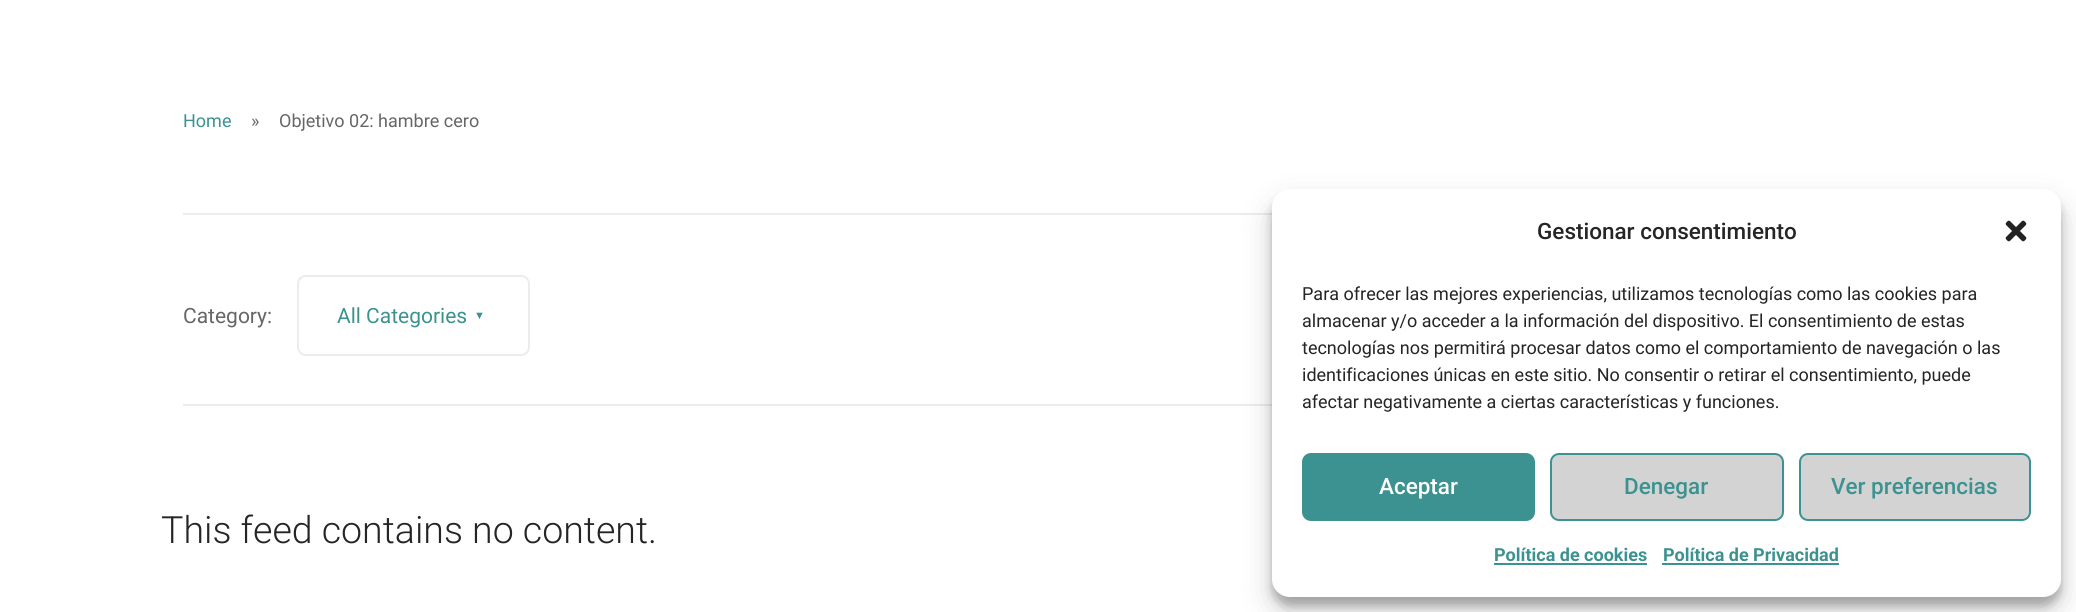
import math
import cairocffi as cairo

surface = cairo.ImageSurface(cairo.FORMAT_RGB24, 2076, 612)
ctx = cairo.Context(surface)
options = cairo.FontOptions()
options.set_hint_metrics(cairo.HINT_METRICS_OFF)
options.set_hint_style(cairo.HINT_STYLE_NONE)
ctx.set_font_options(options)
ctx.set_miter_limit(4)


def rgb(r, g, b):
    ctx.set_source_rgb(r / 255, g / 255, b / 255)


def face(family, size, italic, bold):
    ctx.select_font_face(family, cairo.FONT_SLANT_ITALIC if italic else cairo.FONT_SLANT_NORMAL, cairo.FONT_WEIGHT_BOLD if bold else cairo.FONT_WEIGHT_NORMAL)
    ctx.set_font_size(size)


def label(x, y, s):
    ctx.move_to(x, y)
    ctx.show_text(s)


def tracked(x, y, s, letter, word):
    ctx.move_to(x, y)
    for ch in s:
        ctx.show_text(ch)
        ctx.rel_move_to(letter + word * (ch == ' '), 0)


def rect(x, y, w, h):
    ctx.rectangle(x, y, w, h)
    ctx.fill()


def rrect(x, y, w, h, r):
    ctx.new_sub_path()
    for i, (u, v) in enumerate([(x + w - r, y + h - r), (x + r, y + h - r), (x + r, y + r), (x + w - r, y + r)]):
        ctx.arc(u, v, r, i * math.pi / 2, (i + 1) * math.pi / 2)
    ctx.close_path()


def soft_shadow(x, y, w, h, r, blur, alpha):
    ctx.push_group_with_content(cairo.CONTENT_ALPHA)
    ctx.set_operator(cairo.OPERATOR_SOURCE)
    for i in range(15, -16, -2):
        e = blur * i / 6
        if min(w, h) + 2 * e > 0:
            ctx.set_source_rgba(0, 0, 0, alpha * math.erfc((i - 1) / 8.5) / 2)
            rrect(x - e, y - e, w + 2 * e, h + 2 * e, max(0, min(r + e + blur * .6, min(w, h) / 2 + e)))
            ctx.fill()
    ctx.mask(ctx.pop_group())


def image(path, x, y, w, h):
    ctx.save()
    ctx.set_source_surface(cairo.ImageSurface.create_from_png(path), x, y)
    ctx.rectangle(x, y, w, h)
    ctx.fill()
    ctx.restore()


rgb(255, 255, 255)
ctx.paint()
face('Roboto', 18, 0, 0)
rgb(59, 146, 144)
label(183, 127, 'Home')
rgb(102, 102, 102)
label(251, 127, '»')
label(279, 127, 'Objetivo 02: hambre cero')
rgb(236, 236, 236)
rect(183, 213, 1089, 2)
face('Roboto', 21, 0, 0)
rgb(102, 102, 102)
label(183, 323, 'Category:')
rrect(298, 276, 231, 79, 8)
rgb(236, 236, 236)
ctx.stroke()
rgb(59, 146, 144)
label(337, 323, 'All Categories')
face('Liberation Sans', 11, 0, 0)
tracked(474, 319, '▼', 6, 0)
rgb(236, 236, 236)
rect(183, 404, 1089, 2)
face('Roboto Light', 37.5, 0, 0)
rgb(37, 37, 37)
label(161, 543, 'This feed contains no content.')
rgb(0, 0, 0)
soft_shadow(1272, 198, 789, 408, 18, 4.5, 0.23)
soft_shadow(1272, 204, 789, 408, 18, 15, 0.19)
rgb(255, 255, 255)
rrect(1272, 189, 789, 408, 18)
ctx.fill()
face('Roboto Medium', 22.5, 0, 0)
rgb(37, 37, 37)
label(1537, 239, 'Gestionar consentimiento')
image('image0.png', 2005, 220, 22, 22)
face('Roboto', 18, 0, 0)
label(1302, 300, 'Para ofrecer las mejores experiencias, utilizamos tecnologías como las cookies para')
label(1302, 327, 'almacenar y/o acceder a la información del dispositivo. El consentimiento de estas')
label(1302, 354, 'tecnologías nos permitirá procesar datos como el comportamiento de navegación o las')
label(1302, 381, 'identificaciones únicas en este sitio. No consentir o retirar el consentimiento, puede')
label(1302, 408, 'afectar negativamente a ciertas características y funciones.')
rgb(59, 146, 144)
rrect(1303, 454, 231, 66, 8)
ctx.fill_preserve()
ctx.stroke()
face('Roboto Medium', 22.5, 0, 0)
rgb(255, 255, 255)
label(1379, 494, 'Aceptar')
rgb(211, 211, 211)
rrect(1551, 454, 232, 66, 8)
ctx.fill_preserve()
rgb(59, 146, 144)
ctx.stroke()
label(1624, 494, 'Denegar')
rgb(211, 211, 211)
rrect(1800, 454, 230, 66, 8)
ctx.fill_preserve()
rgb(59, 146, 144)
ctx.stroke()
label(1831, 494, 'Ver preferencias')
face('Roboto', 18, 0, 1)
label(1494, 561, 'Política de cookies')
rect(1494, 563, 153, 2)
label(1663, 561, 'Política de Privacidad')
rect(1662, 563, 177, 2)
surface.write_to_png('render.png')
